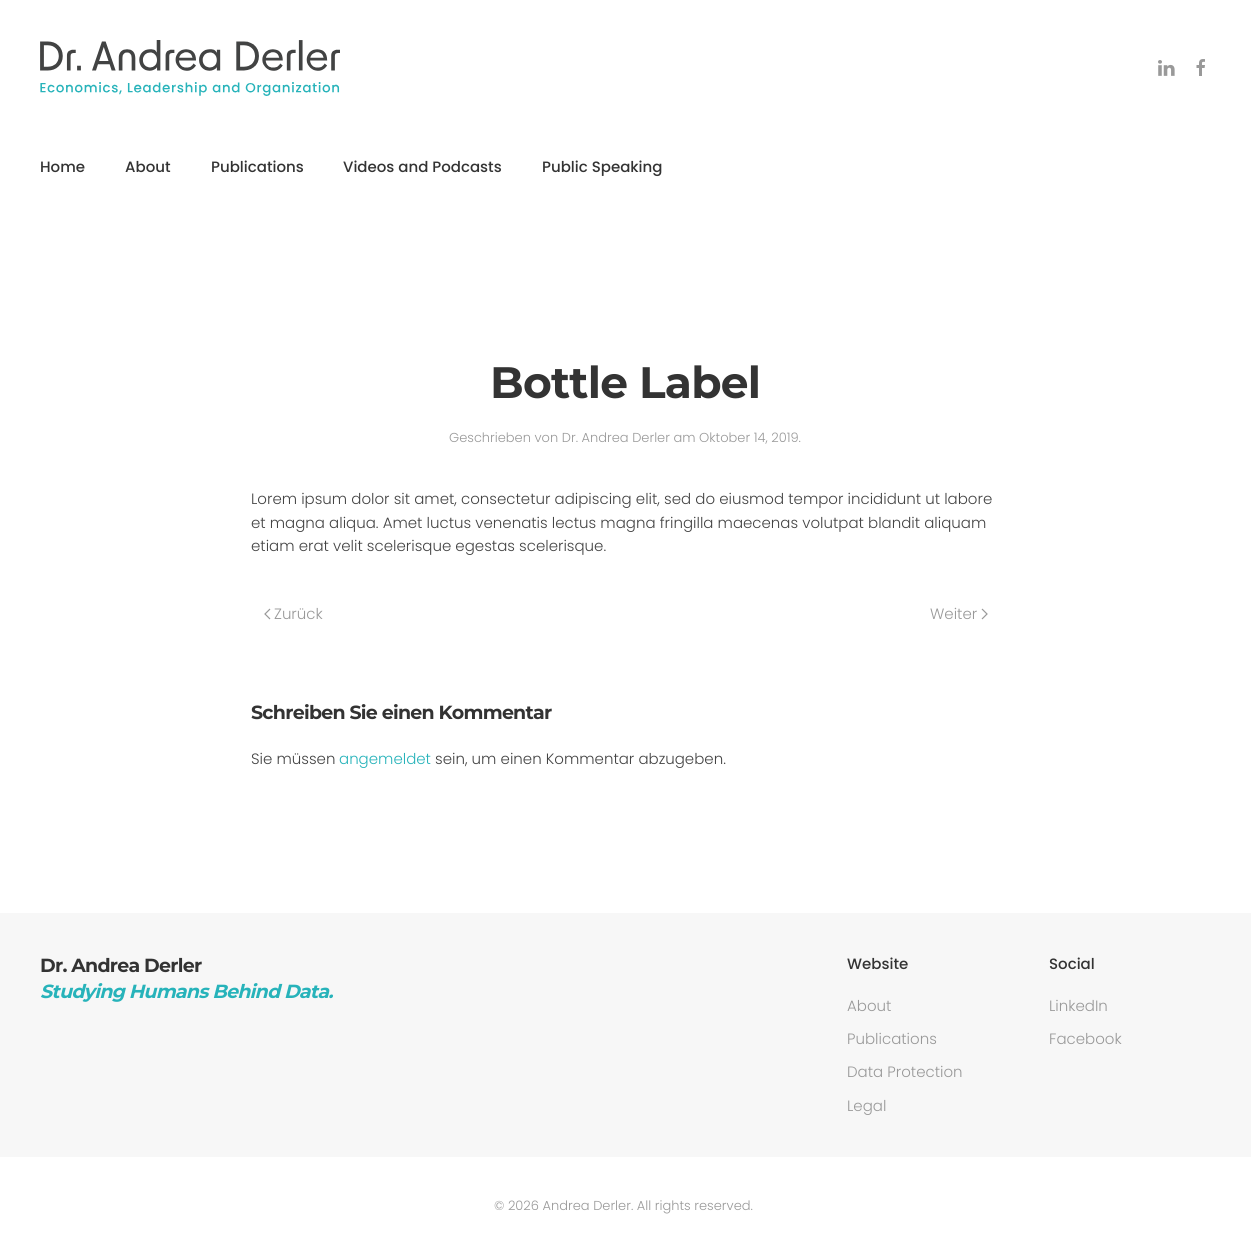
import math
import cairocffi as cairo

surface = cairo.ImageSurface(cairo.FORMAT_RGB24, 1251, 1255)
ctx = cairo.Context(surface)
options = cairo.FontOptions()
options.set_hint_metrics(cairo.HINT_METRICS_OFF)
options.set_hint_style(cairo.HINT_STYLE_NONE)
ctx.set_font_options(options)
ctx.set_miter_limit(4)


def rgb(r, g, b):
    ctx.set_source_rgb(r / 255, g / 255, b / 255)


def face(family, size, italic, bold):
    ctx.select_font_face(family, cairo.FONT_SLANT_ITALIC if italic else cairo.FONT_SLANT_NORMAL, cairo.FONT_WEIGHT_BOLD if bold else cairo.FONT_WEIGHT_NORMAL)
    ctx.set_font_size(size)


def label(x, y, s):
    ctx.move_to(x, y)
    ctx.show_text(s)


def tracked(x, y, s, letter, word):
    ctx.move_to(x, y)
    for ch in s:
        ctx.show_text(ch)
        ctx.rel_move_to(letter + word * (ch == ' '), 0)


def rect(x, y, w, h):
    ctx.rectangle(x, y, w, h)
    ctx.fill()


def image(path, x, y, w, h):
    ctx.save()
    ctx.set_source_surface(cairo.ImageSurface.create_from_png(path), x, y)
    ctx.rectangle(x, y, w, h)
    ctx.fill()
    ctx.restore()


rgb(255, 255, 255)
ctx.paint()
image('image0.png', 40, 40, 300, 56)
image('image1.png', 1158, 60, 17, 16)
image('image2.png', 1196, 59, 9, 17)
face('Poppins Medium', 15, 0, 0)
rgb(51, 51, 51)
label(40, 172, 'Home')
label(125, 172, 'About')
label(211, 172, 'Publications')
label(343, 172, 'Videos and Podcasts')
label(542, 172, 'Public Speaking')
face('Montserrat Thin', 44, 0, 0)
tracked(490, 398, 'Bottle Label', -0.75, 0)
face('Poppins Light', 13, 0, 0)
rgb(153, 153, 153)
label(449, 442, 'Geschrieben von Dr. Andrea Derler am Oktober 14, 2019.')
face('Poppins Light', 15, 0, 0)
rgb(68, 68, 68)
label(251, 504, 'Lorem ipsum dolor sit amet, consectetur adipiscing elit, sed do eiusmod tempor incididunt ut labore')
label(251, 528, 'et magna aliqua. Amet luctus venenatis lectus magna fringilla maecenas volutpat blandit aliquam')
label(251, 551, 'etiam erat velit scelerisque egestas scelerisque.')
ctx.new_path()
ctx.move_to(270, 609)
ctx.line_to(265, 614)
ctx.line_to(270, 619)
rgb(153, 153, 153)
ctx.set_line_width(1.2)
ctx.stroke()
label(274, 619, 'Zurück')
label(930, 619, 'Weiter')
ctx.new_path()
ctx.move_to(982, 609)
ctx.line_to(987, 614)
ctx.line_to(982, 619)
ctx.stroke()
face('Montserrat Thin', 19, 0, 0)
rgb(51, 51, 51)
tracked(251, 719, 'Schreiben Sie einen Kommentar', -0.75, 0)
face('Poppins Light', 15, 0, 0)
rgb(68, 68, 68)
label(251, 764, 'Sie müssen')
rgb(39, 179, 186)
label(339, 764, 'angemeldet')
rgb(68, 68, 68)
label(435, 764, 'sein, um einen Kommentar abzugeben.')
rgb(247, 247, 247)
rect(0, 913, 1251, 244)
face('Montserrat Thin', 19, 0, 0)
rgb(51, 51, 51)
tracked(40, 972, 'Dr. Andrea Derler', -0.75, 0)
face('Montserrat Thin', 19, 1, 0)
rgb(39, 179, 186)
tracked(40, 998, 'Studying Humans Behind Data.', -0.75, 0)
face('Poppins Medium', 15, 0, 0)
rgb(51, 51, 51)
label(847, 969, 'Website')
face('Poppins Light', 15, 0, 0)
rgb(153, 153, 153)
label(847, 1011, 'About')
label(847, 1044, 'Publications')
label(847, 1077, 'Data Protection')
label(847, 1111, 'Legal')
face('Poppins Medium', 15, 0, 0)
rgb(51, 51, 51)
label(1049, 969, 'Social')
face('Poppins Light', 15, 0, 0)
rgb(153, 153, 153)
label(1049, 1011, 'LinkedIn')
label(1049, 1044, 'Facebook')
face('Poppins Light', 13, 0, 0)
label(494, 1210, '© 2026 Andrea Derler. All rights reserved.')
surface.write_to_png('render.png')
